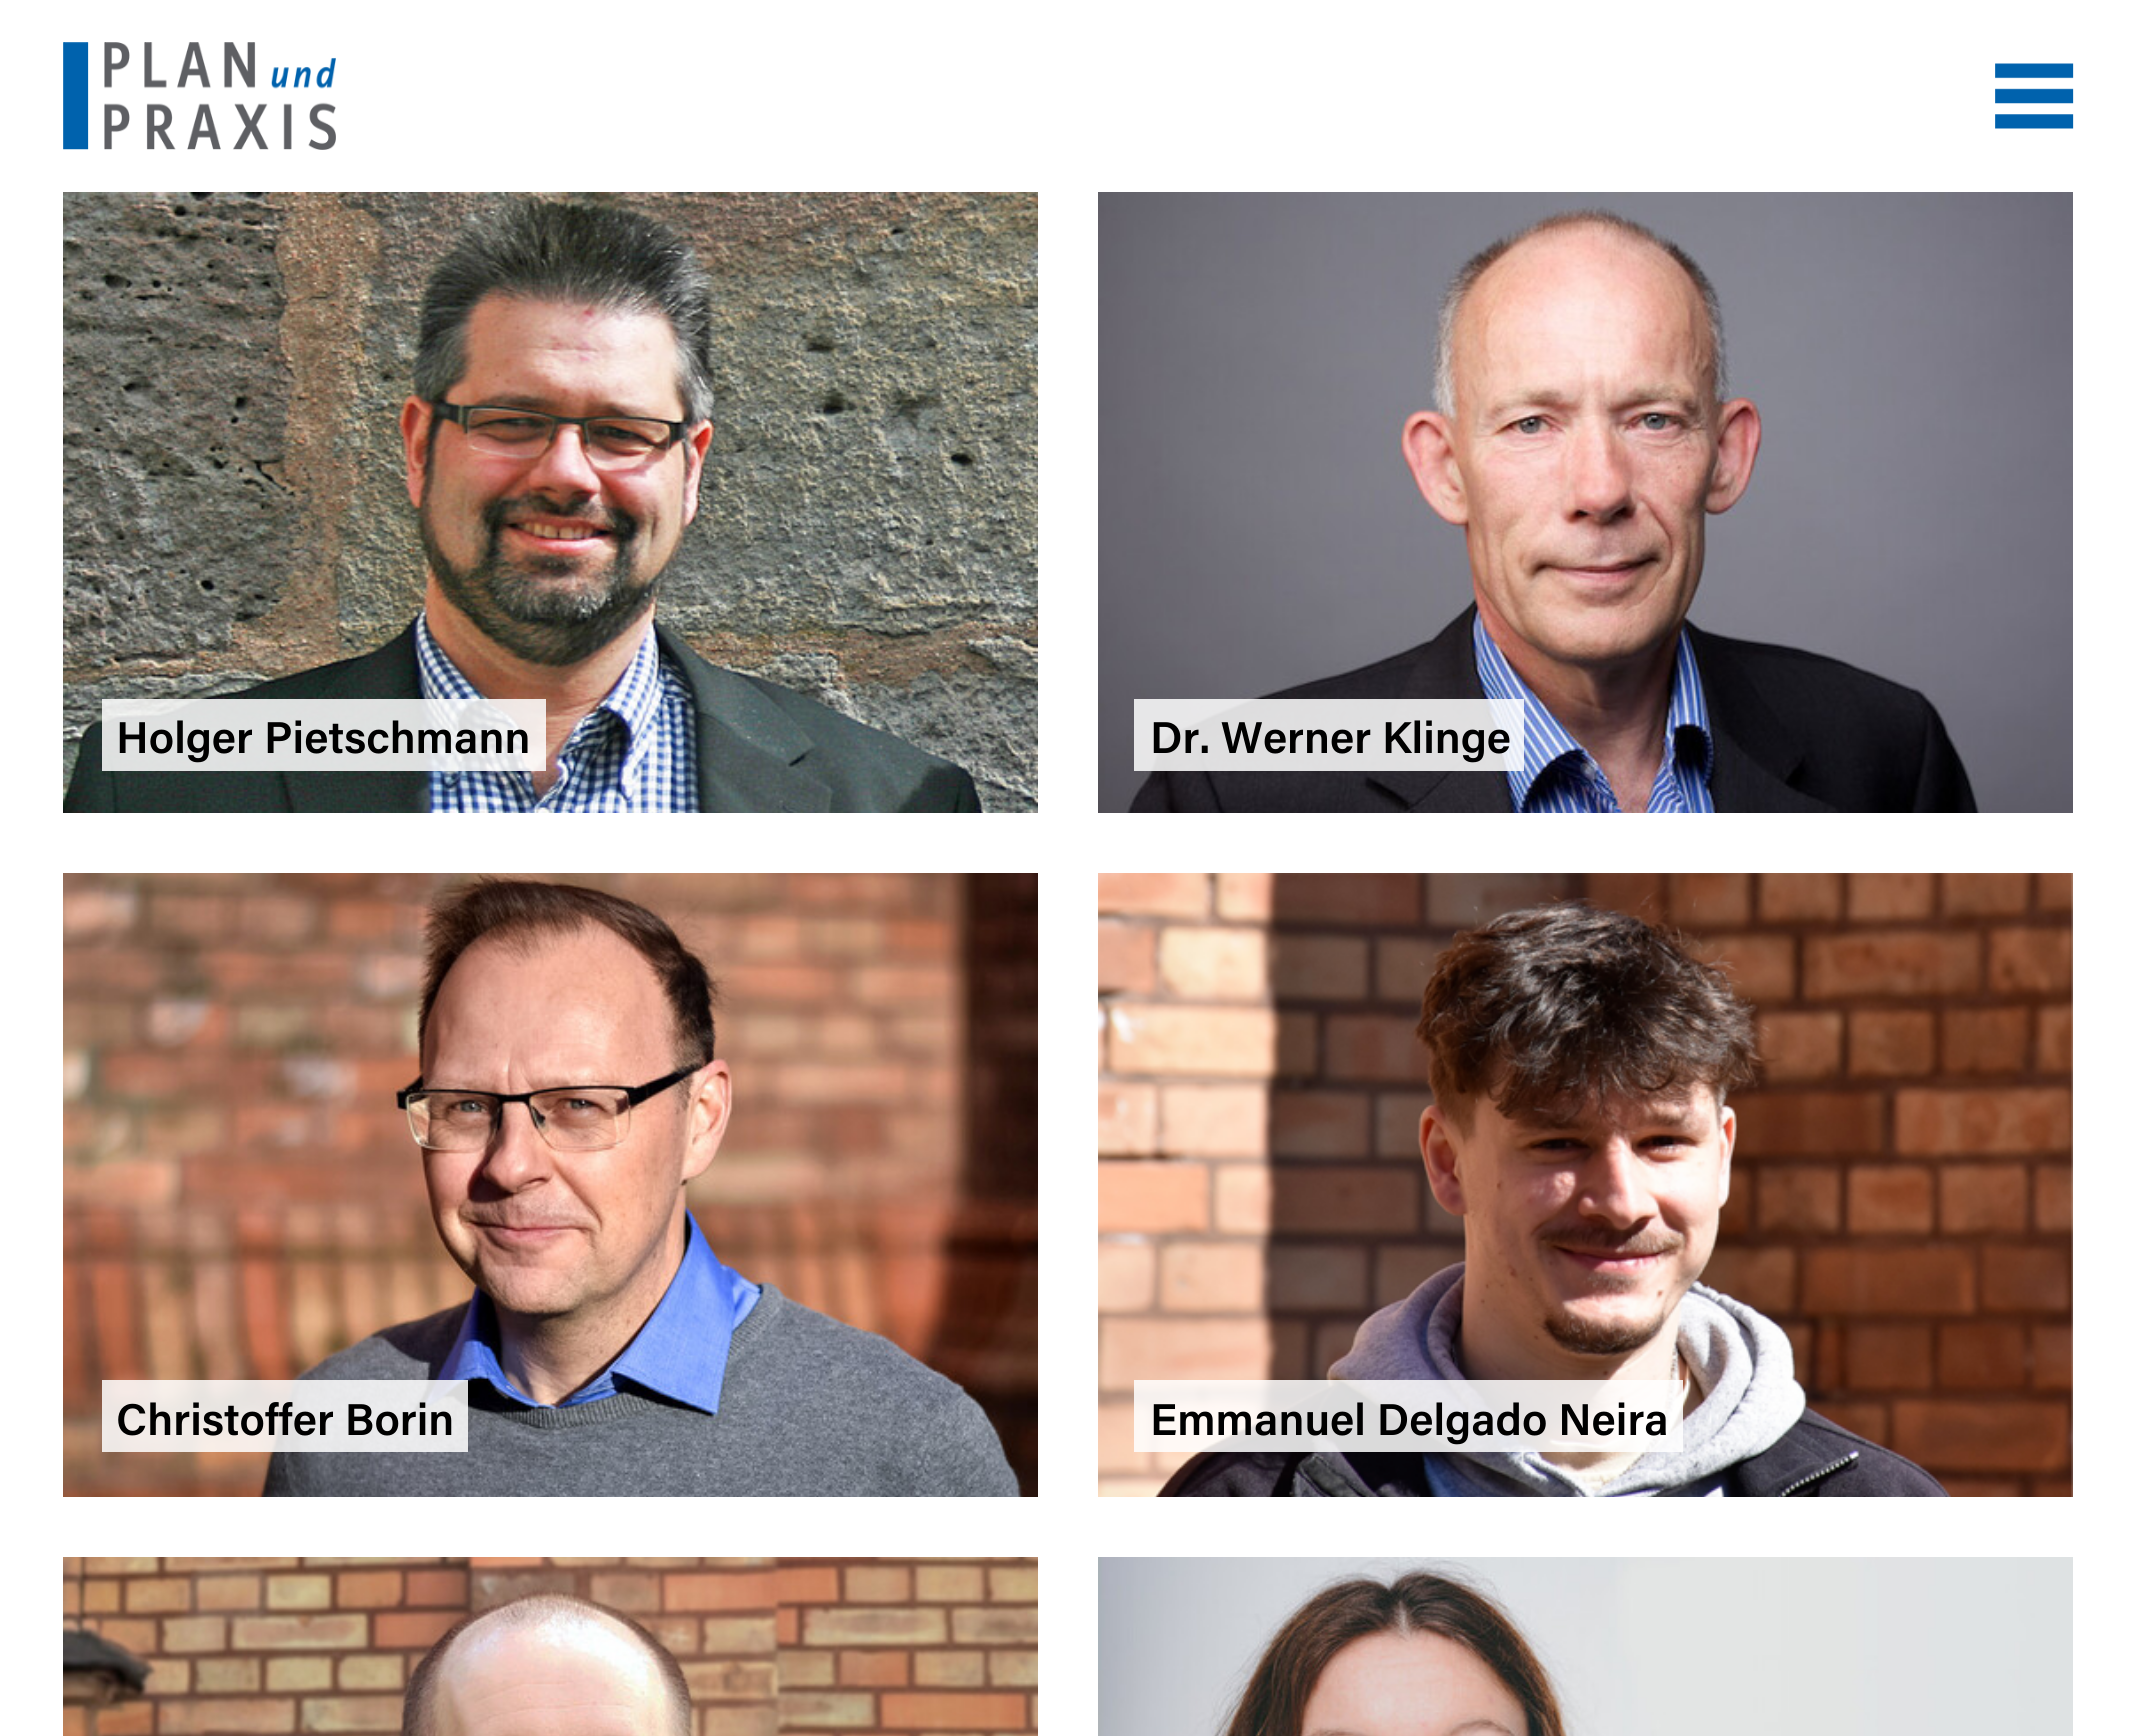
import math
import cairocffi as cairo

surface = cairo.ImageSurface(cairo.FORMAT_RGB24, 2136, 1736)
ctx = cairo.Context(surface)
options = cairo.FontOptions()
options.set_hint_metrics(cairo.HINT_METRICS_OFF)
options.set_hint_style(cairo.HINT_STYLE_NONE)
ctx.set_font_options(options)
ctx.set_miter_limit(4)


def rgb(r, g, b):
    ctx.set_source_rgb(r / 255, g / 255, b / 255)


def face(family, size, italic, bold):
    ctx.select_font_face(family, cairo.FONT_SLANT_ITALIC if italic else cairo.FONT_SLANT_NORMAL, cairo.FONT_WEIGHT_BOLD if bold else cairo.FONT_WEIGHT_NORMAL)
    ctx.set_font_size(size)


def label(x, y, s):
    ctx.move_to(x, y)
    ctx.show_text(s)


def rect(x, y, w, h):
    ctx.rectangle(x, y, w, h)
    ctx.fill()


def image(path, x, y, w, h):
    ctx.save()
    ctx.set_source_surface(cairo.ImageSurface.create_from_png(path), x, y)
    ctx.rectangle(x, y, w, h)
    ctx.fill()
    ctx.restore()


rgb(255, 255, 255)
ctx.paint()
image('image0.png', 63, 42, 273, 108)
image('image1.png', 1995, 63, 79, 66)
image('image2.png', 63, 192, 975, 621)
ctx.set_source_rgba(1, 1, 1, 0.85)
rect(102, 699, 444, 72)
face('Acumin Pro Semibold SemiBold', 44.5, 0, 0)
rgb(0, 0, 0)
label(116, 753, 'Holger Pietschmann')
image('image3.png', 1098, 192, 975, 621)
ctx.set_source_rgba(1, 1, 1, 0.85)
rect(1134, 699, 390, 72)
rgb(0, 0, 0)
label(1150, 753, 'Dr. Werner Klinge')
image('image4.png', 63, 873, 975, 624)
ctx.set_source_rgba(1, 1, 1, 0.85)
rect(102, 1380, 366, 72)
rgb(0, 0, 0)
label(116, 1435, 'Christoffer Borin')
image('image5.png', 1098, 873, 975, 624)
ctx.set_source_rgba(1, 1, 1, 0.85)
rect(1134, 1380, 549, 72)
rgb(0, 0, 0)
label(1150, 1435, 'Emmanuel Delgado Neira')
image('image6.png', 63, 1557, 975, 179)
image('image7.png', 1098, 1557, 975, 179)
surface.write_to_png('render.png')
